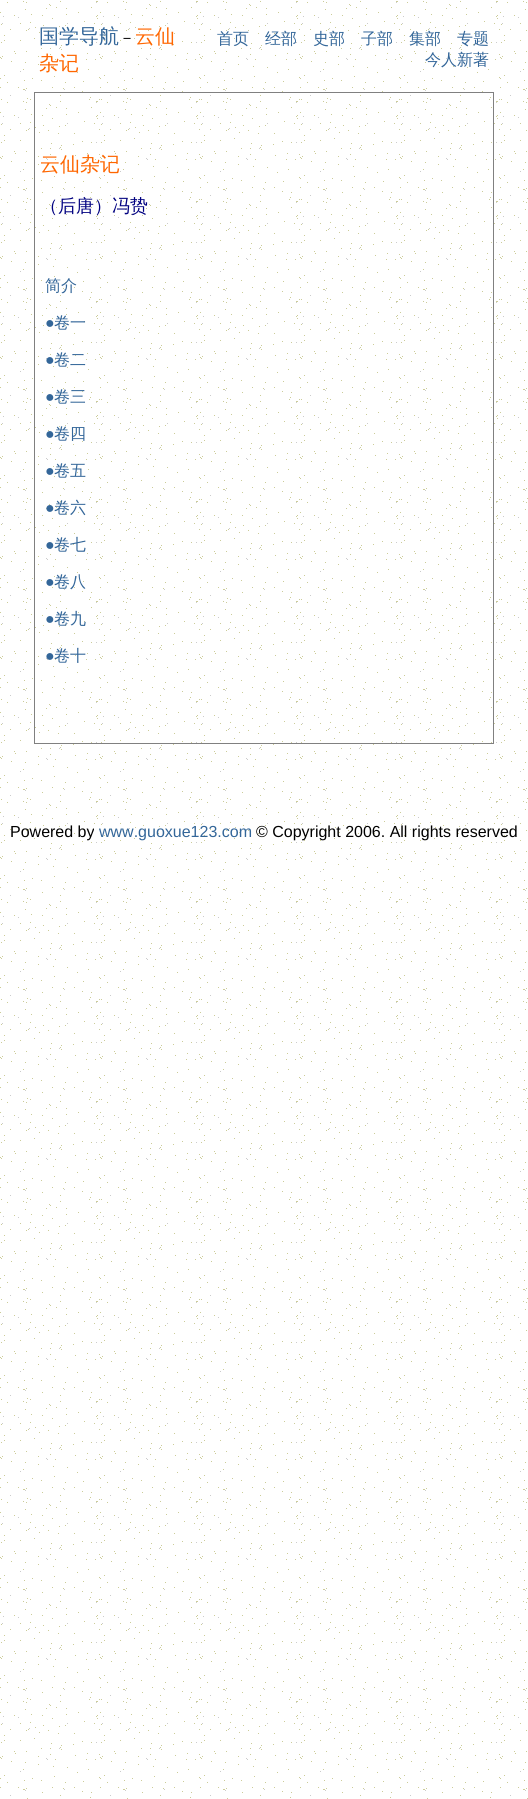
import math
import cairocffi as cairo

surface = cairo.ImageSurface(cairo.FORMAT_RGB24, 528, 1799)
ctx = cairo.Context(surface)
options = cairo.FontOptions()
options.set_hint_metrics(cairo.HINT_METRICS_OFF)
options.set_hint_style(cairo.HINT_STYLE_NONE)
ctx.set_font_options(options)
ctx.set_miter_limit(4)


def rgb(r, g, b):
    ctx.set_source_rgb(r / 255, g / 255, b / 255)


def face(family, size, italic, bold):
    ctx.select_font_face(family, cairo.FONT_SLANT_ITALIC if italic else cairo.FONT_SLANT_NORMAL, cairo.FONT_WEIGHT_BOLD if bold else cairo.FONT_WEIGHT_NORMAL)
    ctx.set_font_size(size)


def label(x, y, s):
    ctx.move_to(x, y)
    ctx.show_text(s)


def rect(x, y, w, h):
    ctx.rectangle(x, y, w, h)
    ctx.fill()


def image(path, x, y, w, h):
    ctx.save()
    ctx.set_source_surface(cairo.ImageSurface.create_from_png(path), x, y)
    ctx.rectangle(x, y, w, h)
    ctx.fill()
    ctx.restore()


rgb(255, 255, 255)
ctx.paint()
image('image0.png', 0, 1, 528, 1798)
face('WenQuanYi Zen Hei Medium', 20, 0, 0)
rgb(51, 102, 153)
label(39, 43, '国学导航')
face('WenQuanYi Zen Hei Medium', 16, 0, 0)
rgb(0, 0, 0)
label(119, 43, '－')
face('WenQuanYi Zen Hei Medium', 20, 0, 0)
rgb(255, 102, 0)
label(135, 43, '云仙')
label(39, 70, '杂记')
face('WenQuanYi Zen Hei Medium', 16, 0, 0)
rgb(51, 102, 153)
label(217, 44, '首页')
label(265, 44, '经部')
label(313, 44, '史部')
label(361, 44, '子部')
label(409, 44, '集部')
label(457, 44, '专题')
label(425, 65, '今人新著')
rgb(128, 128, 128)
rect(34, 92, 460, 1)
rect(493, 92, 1, 652)
rect(34, 743, 460, 1)
rect(34, 92, 1, 652)
face('WenQuanYi Zen Hei Medium', 20, 0, 0)
rgb(255, 102, 0)
label(40, 171, '云仙杂记')
face('WenQuanYi Zen Hei Medium', 18, 0, 0)
rgb(0, 0, 128)
label(40, 212, '（后唐）冯贽')
face('WenQuanYi Zen Hei Medium', 16, 0, 0)
rgb(51, 102, 153)
label(45, 291, '简介')
face('Liberation Sans', 16, 0, 0)
label(45, 328, '●')
face('WenQuanYi Zen Hei Medium', 16, 0, 0)
label(54, 328, '卷一')
face('Liberation Sans', 16, 0, 0)
label(45, 365, '●')
face('WenQuanYi Zen Hei Medium', 16, 0, 0)
label(54, 365, '卷二')
face('Liberation Sans', 16, 0, 0)
label(45, 402, '●')
face('WenQuanYi Zen Hei Medium', 16, 0, 0)
label(54, 402, '卷三')
face('Liberation Sans', 16, 0, 0)
label(45, 439, '●')
face('WenQuanYi Zen Hei Medium', 16, 0, 0)
label(54, 439, '卷四')
face('Liberation Sans', 16, 0, 0)
label(45, 476, '●')
face('WenQuanYi Zen Hei Medium', 16, 0, 0)
label(54, 476, '卷五')
face('Liberation Sans', 16, 0, 0)
label(45, 513, '●')
face('WenQuanYi Zen Hei Medium', 16, 0, 0)
label(54, 513, '卷六')
face('Liberation Sans', 16, 0, 0)
label(45, 550, '●')
face('WenQuanYi Zen Hei Medium', 16, 0, 0)
label(54, 550, '卷七')
face('Liberation Sans', 16, 0, 0)
label(45, 587, '●')
face('WenQuanYi Zen Hei Medium', 16, 0, 0)
label(54, 587, '卷八')
face('Liberation Sans', 16, 0, 0)
label(45, 624, '●')
face('WenQuanYi Zen Hei Medium', 16, 0, 0)
label(54, 624, '卷九')
face('Liberation Sans', 16, 0, 0)
label(45, 661, '●')
face('WenQuanYi Zen Hei Medium', 16, 0, 0)
label(54, 661, '卷十')
face('Liberation Sans', 16, 0, 0)
rgb(0, 0, 0)
label(10, 837, 'Powered by')
rgb(51, 102, 153)
label(99, 837, 'www.guoxue123.com')
rgb(0, 0, 0)
label(256, 837, '© Copyright 2006. All rights reserved')
surface.write_to_png('render.png')
